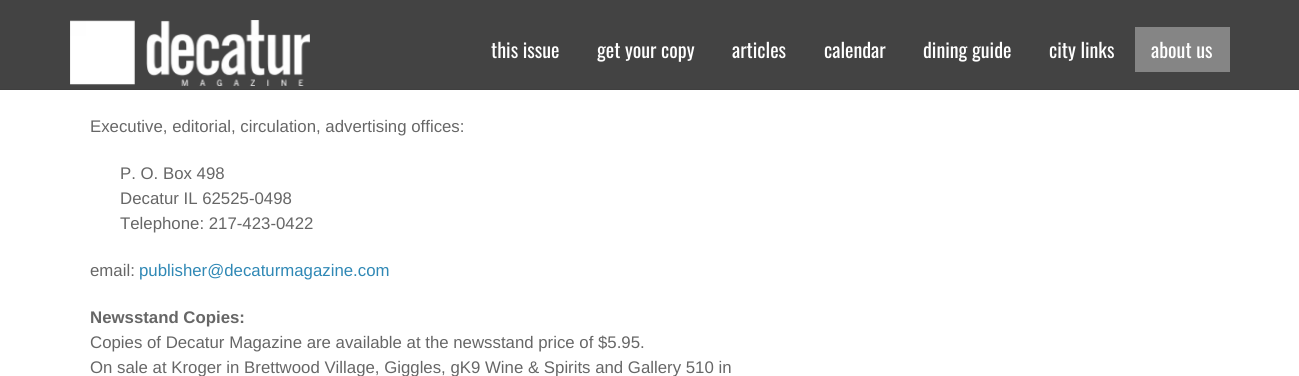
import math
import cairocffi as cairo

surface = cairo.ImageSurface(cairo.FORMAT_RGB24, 1299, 376)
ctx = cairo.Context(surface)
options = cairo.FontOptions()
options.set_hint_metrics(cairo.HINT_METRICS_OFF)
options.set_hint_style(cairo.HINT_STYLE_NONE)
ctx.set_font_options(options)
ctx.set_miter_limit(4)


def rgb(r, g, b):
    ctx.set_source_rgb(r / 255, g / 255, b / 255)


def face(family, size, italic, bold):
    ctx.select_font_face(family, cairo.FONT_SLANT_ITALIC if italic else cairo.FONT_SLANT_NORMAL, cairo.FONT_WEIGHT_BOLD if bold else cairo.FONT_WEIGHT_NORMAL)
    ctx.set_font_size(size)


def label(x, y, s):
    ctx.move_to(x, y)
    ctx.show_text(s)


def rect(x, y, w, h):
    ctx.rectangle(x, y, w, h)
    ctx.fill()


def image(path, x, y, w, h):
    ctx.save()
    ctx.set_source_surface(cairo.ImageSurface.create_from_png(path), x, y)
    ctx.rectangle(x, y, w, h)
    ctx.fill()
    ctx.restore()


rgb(255, 255, 255)
ctx.paint()
rgb(67, 67, 67)
rect(0, 0, 1299, 89)
rgb(63, 63, 63)
rect(0, 89, 1299, 1)
image('image0.png', 70, 20, 240, 66)
face('Oswald', 20, 0, 0)
rgb(255, 255, 255)
label(491, 58, 'this issue')
label(597, 58, 'get your copy')
label(732, 58, 'articles')
label(824, 58, 'calendar')
label(923, 58, 'dining guide')
label(1049, 58, 'city links')
rgb(133, 133, 133)
rect(1135, 27, 95, 45)
rgb(255, 255, 255)
label(1151, 58, 'about us')
face('Liberation Sans', 16.8, 0, 0)
rgb(102, 102, 102)
label(90, 132, 'Executive, editorial, circulation, advertising offices:')
label(120, 179, 'P. O. Box 498')
label(120, 204, 'Decatur IL 62525-0498')
label(120, 229, 'Telephone: 217-423-0422')
label(90, 276, 'email:')
rgb(47, 136, 181)
label(139, 276, 'publisher@decaturmagazine.com')
face('Liberation Sans', 16.8, 0, 1)
rgb(102, 102, 102)
label(90, 323, 'Newsstand Copies:')
face('Liberation Sans', 16.8, 0, 0)
label(90, 348, 'Copies of Decatur Magazine are available at the newsstand price of $5.95.')
label(90, 373, 'On sale at Kroger in Brettwood Village, Giggles, gK9 Wine & Spirits and Gallery 510 in')
surface.write_to_png('render.png')
